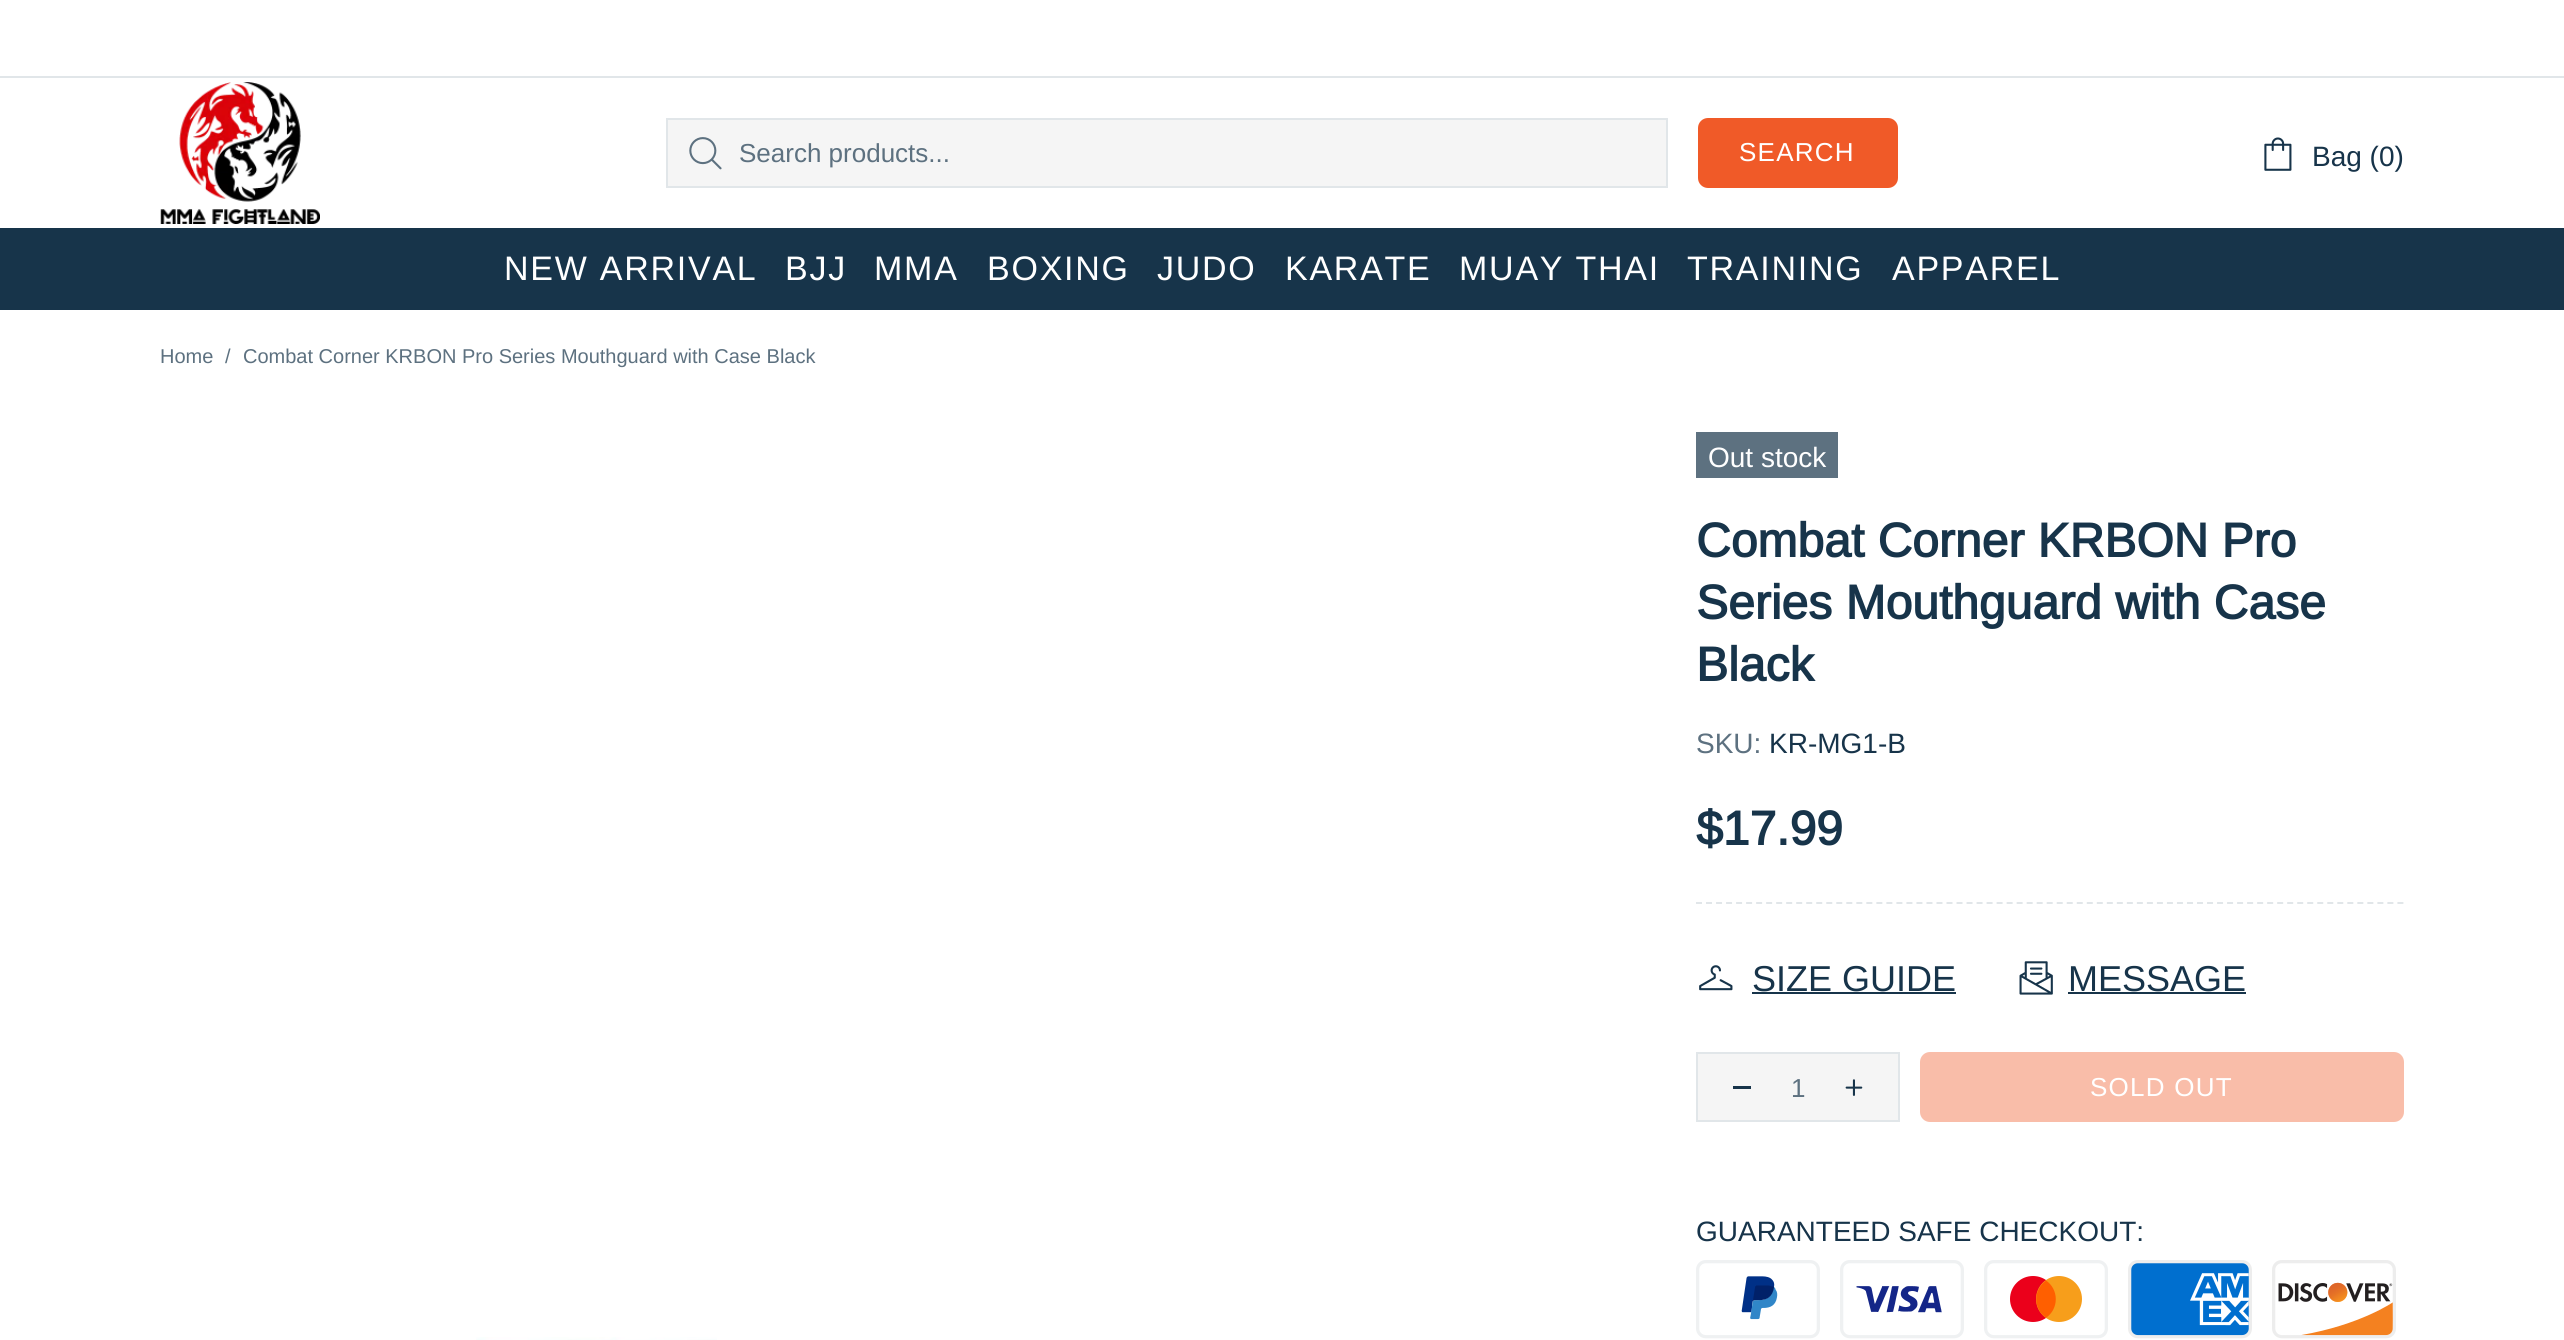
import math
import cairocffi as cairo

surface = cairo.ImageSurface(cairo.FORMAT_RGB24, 2564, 1340)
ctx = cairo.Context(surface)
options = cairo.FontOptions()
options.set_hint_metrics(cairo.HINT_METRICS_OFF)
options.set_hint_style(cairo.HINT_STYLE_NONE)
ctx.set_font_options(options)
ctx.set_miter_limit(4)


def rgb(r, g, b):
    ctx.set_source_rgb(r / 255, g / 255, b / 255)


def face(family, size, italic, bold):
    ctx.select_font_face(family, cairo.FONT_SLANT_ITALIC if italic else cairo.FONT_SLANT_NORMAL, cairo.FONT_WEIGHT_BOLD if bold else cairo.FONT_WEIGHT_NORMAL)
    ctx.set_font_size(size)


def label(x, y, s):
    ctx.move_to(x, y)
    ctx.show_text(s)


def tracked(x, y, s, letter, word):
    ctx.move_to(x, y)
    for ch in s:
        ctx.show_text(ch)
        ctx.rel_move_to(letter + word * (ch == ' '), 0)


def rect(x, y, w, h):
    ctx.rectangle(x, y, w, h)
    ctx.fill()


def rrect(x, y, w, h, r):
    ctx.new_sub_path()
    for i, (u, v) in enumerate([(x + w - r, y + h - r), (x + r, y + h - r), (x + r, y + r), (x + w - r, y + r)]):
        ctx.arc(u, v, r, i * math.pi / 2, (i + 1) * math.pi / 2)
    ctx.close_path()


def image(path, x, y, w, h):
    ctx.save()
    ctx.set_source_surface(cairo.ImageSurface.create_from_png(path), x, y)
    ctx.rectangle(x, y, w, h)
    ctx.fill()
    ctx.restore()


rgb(255, 255, 255)
ctx.paint()
rgb(225, 230, 233)
rect(0, 76, 2564, 2)
image('image0.png', 160, 82, 160, 142)
rgb(245, 245, 245)
ctx.rectangle(667, 119, 1000, 68)
ctx.fill_preserve()
rgb(225, 230, 233)
ctx.stroke()
image('image1.png', 689, 137, 33, 33)
face('Arimo', 26, 0, 0)
rgb(93, 113, 128)
label(739, 162, 'Search products...')
rgb(240, 90, 40)
rrect(1699, 119, 198, 68, 9)
ctx.fill_preserve()
ctx.stroke()
rgb(255, 255, 255)
tracked(1739, 161, 'SEARCH', 1.25, 0)
image('image2.png', 2264, 137, 28, 34)
face('Arimo', 28, 0, 0)
rgb(23, 52, 74)
label(2312, 166, 'Bag (0)')
rect(0, 228, 2564, 82)
face('Arimo', 34, 0, 0)
rgb(255, 255, 255)
tracked(504, 280, 'NEW ARRIVAL', 1.75, 0)
tracked(785, 280, 'BJJ', 1.75, 0)
tracked(874, 280, 'MMA', 1.75, 0)
tracked(987, 280, 'BOXING', 1.75, 0)
tracked(1157, 280, 'JUDO', 1.75, 0)
tracked(1285, 280, 'KARATE', 1.75, 0)
tracked(1459, 280, 'MUAY THAI', 1.75, 0)
tracked(1687, 280, 'TRAINING', 1.75, 0)
tracked(1892, 280, 'APPAREL', 1.75, 0)
face('Arimo', 20, 0, 0)
rgb(93, 113, 128)
label(160, 363, 'Home')
label(225, 363, '/')
label(243, 363, 'Combat Corner KRBON Pro Series Mouthguard with Case Black')
rect(1696, 432, 142, 46)
face('Arimo', 28, 0, 0)
rgb(255, 255, 255)
label(1708, 467, 'Out stock')
face('Arimo', 48, 0, 1)
rgb(23, 52, 74)
label(1696, 557, 'Combat Corner KRBON Pro')
label(1696, 619, 'Series Mouthguard with Case')
label(1696, 681, 'Black')
face('Arimo', 28, 0, 0)
rgb(93, 113, 128)
label(1696, 753, 'SKU:')
rgb(23, 52, 74)
label(1769, 753, 'KR-MG1-B')
face('Arimo', 48, 0, 1)
label(1696, 845, '$17.99')
ctx.new_path()
ctx.move_to(1696, 903)
ctx.line_to(2404, 903)
rgb(225, 230, 233)
ctx.set_dash([6, 4.02])
ctx.stroke()
image('image3.png', 1699, 965, 34, 26)
face('Arimo', 36, 0, 0)
rgb(23, 52, 74)
label(1752, 991, 'SIZE GUIDE')
rect(1752, 992, 204, 2)
image('image4.png', 2019, 961, 34, 34)
label(2068, 991, 'MESSAGE')
rect(2068, 992, 178, 2)
rgb(245, 245, 245)
ctx.rectangle(1697, 1053, 202, 68)
ctx.fill_preserve()
rgb(225, 230, 233)
ctx.set_dash([])
ctx.stroke()
rgb(23, 52, 74)
rect(1733, 1086, 18, 3)
face('Arimo', 26, 0, 0)
rgb(93, 113, 128)
label(1791, 1097, '1')
image('image5.png', 1845, 1079, 18, 17)
rgb(249, 189, 169)
rrect(1921, 1053, 482, 68, 9)
ctx.fill_preserve()
ctx.stroke()
rgb(255, 255, 255)
tracked(2090, 1096, 'SOLD OUT', 1.25, 0)
face('Arimo', 28, 0, 0)
rgb(23, 52, 74)
label(1696, 1241, 'GUARANTEED SAFE CHECKOUT:')
image('image6.png', 1696, 1260, 124, 79)
image('image7.png', 1840, 1260, 124, 79)
image('image8.png', 1984, 1260, 124, 79)
image('image9.png', 2128, 1260, 124, 79)
image('image10.png', 2272, 1260, 124, 79)
image('image11.png', 476, 1337, 241, 3)
surface.write_to_png('render.png')
